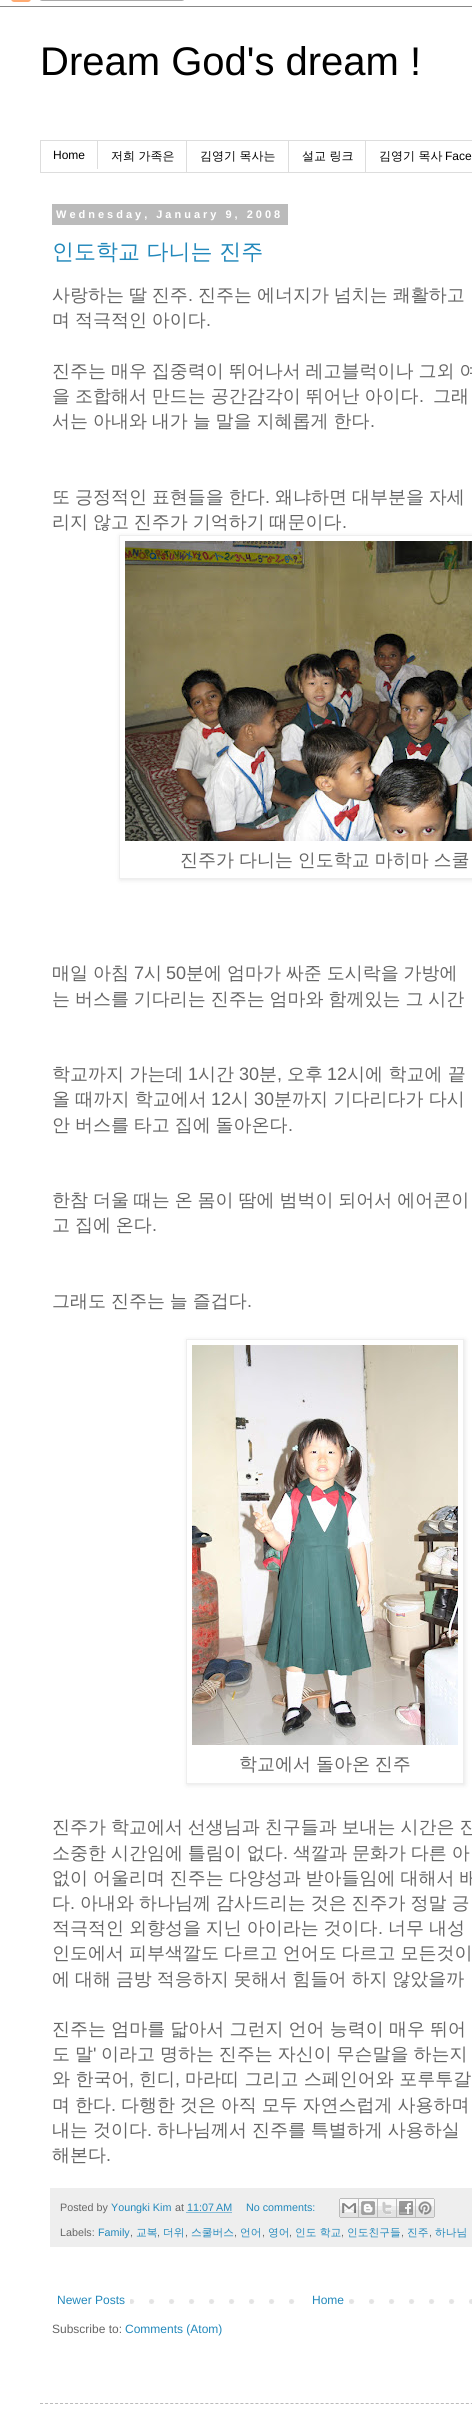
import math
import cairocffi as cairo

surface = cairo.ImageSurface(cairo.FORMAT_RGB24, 472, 2433)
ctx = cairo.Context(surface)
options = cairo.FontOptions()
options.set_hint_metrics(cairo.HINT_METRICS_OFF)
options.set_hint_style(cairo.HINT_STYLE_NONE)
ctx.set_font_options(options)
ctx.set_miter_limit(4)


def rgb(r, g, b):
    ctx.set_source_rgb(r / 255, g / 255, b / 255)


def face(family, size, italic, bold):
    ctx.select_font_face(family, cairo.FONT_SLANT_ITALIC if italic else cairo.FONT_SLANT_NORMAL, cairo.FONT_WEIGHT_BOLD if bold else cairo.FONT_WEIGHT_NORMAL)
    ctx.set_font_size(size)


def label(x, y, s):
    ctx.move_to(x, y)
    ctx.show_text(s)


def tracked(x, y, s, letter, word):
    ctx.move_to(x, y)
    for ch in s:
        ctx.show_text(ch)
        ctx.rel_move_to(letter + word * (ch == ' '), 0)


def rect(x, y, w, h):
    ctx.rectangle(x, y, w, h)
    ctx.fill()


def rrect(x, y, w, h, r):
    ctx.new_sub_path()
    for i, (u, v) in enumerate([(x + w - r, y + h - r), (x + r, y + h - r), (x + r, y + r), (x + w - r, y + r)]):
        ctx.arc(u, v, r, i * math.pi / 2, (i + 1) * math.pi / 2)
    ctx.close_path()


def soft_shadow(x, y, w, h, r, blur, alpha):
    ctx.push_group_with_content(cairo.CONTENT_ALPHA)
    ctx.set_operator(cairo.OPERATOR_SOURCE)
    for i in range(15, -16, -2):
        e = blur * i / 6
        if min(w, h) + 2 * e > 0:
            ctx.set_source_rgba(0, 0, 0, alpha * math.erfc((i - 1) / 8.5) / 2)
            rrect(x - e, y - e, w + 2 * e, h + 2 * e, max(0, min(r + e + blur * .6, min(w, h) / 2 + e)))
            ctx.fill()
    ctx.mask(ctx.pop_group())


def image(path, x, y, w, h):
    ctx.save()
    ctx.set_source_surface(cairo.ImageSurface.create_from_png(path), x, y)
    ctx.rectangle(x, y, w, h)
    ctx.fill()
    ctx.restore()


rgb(255, 255, 255)
ctx.paint()
image('image0.png', 0, 0, 472, 7)
face('Liberation Sans', 40, 0, 0)
rgb(0, 0, 0)
label(40, 75, 'Dream God\'s dream !')
ctx.rectangle(40.5, 140.5, 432, 32)
rgb(221, 221, 221)
ctx.set_line_width(1)
ctx.stroke()
rect(97, 141, 1, 28)
face('Liberation Sans', 12, 0, 0)
rgb(0, 0, 0)
label(53, 159, 'Home')
rgb(221, 221, 221)
rect(186, 141, 1, 31)
face('WenQuanYi Zen Hei Medium', 12, 0, 0)
rgb(0, 0, 0)
label(111, 160, '저희 가족은')
rgb(221, 221, 221)
rect(288, 141, 1, 31)
rgb(0, 0, 0)
label(200, 160, '김영기 목사는')
rgb(221, 221, 221)
rect(365, 141, 1, 31)
rgb(0, 0, 0)
label(302, 160, '설교 링크')
label(379, 160, '김영기 목사')
face('Liberation Sans', 12, 0, 0)
label(445, 160, 'Face')
rgb(187, 187, 187)
rect(52, 204, 236, 21)
face('Liberation Sans', 11, 0, 1)
rgb(255, 255, 255)
tracked(56, 218, 'Wednesday, January 9, 2008', 3, 0)
face('WenQuanYi Zen Hei Medium', 22, 0, 0)
rgb(34, 136, 187)
label(52, 259, '인도학교 다니는 진주')
face('WenQuanYi Zen Hei Medium', 18, 0, 0)
rgb(102, 102, 102)
tracked(52, 301, '사랑하는 딸 진주', 0, -0.5)
face('Liberation Sans', 18, 0, 0)
label(188, 301, '.')
face('WenQuanYi Zen Hei Medium', 18, 0, 0)
tracked(198, 301, '진주는 에너지가 넘치는 쾌활하고', 0, -0.5)
tracked(52, 326, '며 적극적인 아이다', 0, -0.5)
face('Liberation Sans', 18, 0, 0)
label(206, 326, '.')
face('WenQuanYi Zen Hei Medium', 18, 0, 0)
tracked(52, 377, '진주는 매우 집중력이 뛰어나서 레고블럭이나 그외 여', 0, -0.5)
tracked(52, 402, '을 조합해서 만드는 공간감각이 뛰어난 아이다', 0, -0.5)
face('Liberation Sans', 18, 0, 0)
label(419, 402, '.')
face('WenQuanYi Zen Hei Medium', 18, 0, 0)
tracked(433, 402, '그래', 0, -0.5)
tracked(52, 427, '서는 아내와 내가 늘 말을 지혜롭게 한다', 0, -0.5)
face('Liberation Sans', 18, 0, 0)
label(370, 427, '.')
face('WenQuanYi Zen Hei Medium', 18, 0, 0)
tracked(52, 503, '또 긍정적인 표현들을 한다', 0, -0.5)
face('Liberation Sans', 18, 0, 0)
label(265, 503, '.')
face('WenQuanYi Zen Hei Medium', 18, 0, 0)
tracked(275, 503, '왜냐하면 대부분을 자세', 0, -0.5)
tracked(52, 528, '리지 않고 진주가 기억하기 때문이다', 0, -0.5)
face('Liberation Sans', 18, 0, 0)
label(342, 528, '.')
ctx.save()
ctx.set_fill_rule(cairo.FILL_RULE_EVEN_ODD)
ctx.new_path()
ctx.move_to(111, 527)
ctx.line_to(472, 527)
ctx.line_to(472, 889)
ctx.line_to(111, 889)
ctx.close_path()
ctx.move_to(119, 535)
ctx.line_to(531, 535)
ctx.line_to(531, 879)
ctx.line_to(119, 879)
ctx.close_path()
ctx.clip()
rgb(0, 0, 0)
soft_shadow(120, 536, 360, 344, 0, 2.5, 0.1)
ctx.restore()
ctx.rectangle(119.5, 535.5, 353, 343)
rgb(238, 238, 238)
ctx.stroke()
image('image1.png', 125, 541, 347, 300)
face('WenQuanYi Zen Hei Medium', 18, 0, 0)
rgb(102, 102, 102)
tracked(180, 866, '진주가 다니는 인도학교 마히마 스쿨', 0, -0.5)
tracked(52, 979, '매일 아침', 0, -0.5)
face('Liberation Sans', 18, 0, 0)
label(134, 979, '7')
face('WenQuanYi Zen Hei Medium', 18, 0, 0)
label(144, 979, '시')
face('Liberation Sans', 18, 0, 0)
label(166, 979, '50')
face('WenQuanYi Zen Hei Medium', 18, 0, 0)
tracked(186, 979, '분에 엄마가 싸준 도시락을 가방에', 0, -0.5)
tracked(52, 1005, '는 버스를 기다리는 진주는 엄마와 함께있는 그 시간', 0, -0.5)
label(52, 1080, '학교까지 가는데')
face('Liberation Sans', 18, 0, 0)
label(188, 1080, '1')
face('WenQuanYi Zen Hei Medium', 18, 0, 0)
label(198, 1080, '시간')
face('Liberation Sans', 18, 0, 0)
label(239, 1080, '30')
face('WenQuanYi Zen Hei Medium', 18, 0, 0)
label(259, 1080, '분')
label(287, 1080, '오후')
face('Liberation Sans', 18, 0, 0)
label(327, 1080, '12')
face('WenQuanYi Zen Hei Medium', 18, 0, 0)
label(347, 1080, '시에 학교에 끝')
face('Liberation Sans', 18, 0, 0)
label(277, 1080, ',')
face('WenQuanYi Zen Hei Medium', 18, 0, 0)
label(52, 1105, '올 때까지 학교에서')
face('Liberation Sans', 18, 0, 0)
label(211, 1105, '12')
face('WenQuanYi Zen Hei Medium', 18, 0, 0)
label(231, 1105, '시')
face('Liberation Sans', 18, 0, 0)
label(254, 1105, '30')
face('WenQuanYi Zen Hei Medium', 18, 0, 0)
label(274, 1105, '분까지 기다리다가 다시')
tracked(52, 1131, '안 버스를 타고 집에 돌아온다', 0, -0.5)
face('Liberation Sans', 18, 0, 0)
label(288, 1131, '.')
face('WenQuanYi Zen Hei Medium', 18, 0, 0)
tracked(52, 1206, '한참 더울 때는 온 몸이 땀에 범벅이 되어서 에어콘이', 0, -0.5)
tracked(52, 1231, '고 집에 온다', 0, -0.5)
face('Liberation Sans', 18, 0, 0)
label(152, 1231, '.')
face('WenQuanYi Zen Hei Medium', 18, 0, 0)
tracked(52, 1307, '그래도 진주는 늘 즐겁다', 0, -0.5)
face('Liberation Sans', 18, 0, 0)
label(247, 1307, '.')
ctx.save()
ctx.set_fill_rule(cairo.FILL_RULE_EVEN_ODD)
ctx.new_path()
ctx.move_to(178, 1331)
ctx.line_to(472, 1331)
ctx.line_to(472, 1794)
ctx.line_to(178, 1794)
ctx.close_path()
ctx.move_to(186, 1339)
ctx.line_to(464, 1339)
ctx.line_to(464, 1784)
ctx.line_to(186, 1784)
ctx.close_path()
ctx.clip()
rgb(0, 0, 0)
soft_shadow(187, 1340, 278, 445, 0, 2.5, 0.1)
ctx.restore()
ctx.rectangle(186.5, 1339.5, 277, 444)
rgb(238, 238, 238)
ctx.stroke()
image('image2.png', 192, 1345, 266, 400)
face('WenQuanYi Zen Hei Medium', 18, 0, 0)
rgb(102, 102, 102)
tracked(239, 1770, '학교에서 돌아온 진주', 0, -0.5)
tracked(52, 1833, '진주가 학교에서 선생님과 친구들과 보내는 시간은 진', 0, -0.5)
tracked(52, 1859, '소중한 시간임에 틀림이 없다', 0, -0.5)
face('Liberation Sans', 18, 0, 0)
label(283, 1859, '.')
face('WenQuanYi Zen Hei Medium', 18, 0, 0)
tracked(293, 1859, '색깔과 문화가 다른 아', 0, -0.5)
tracked(52, 1884, '없이 어울리며 진주는 다양성과 받아들임에 대해서 배', 0, -0.5)
label(52, 1909, '다')
face('Liberation Sans', 18, 0, 0)
label(70, 1909, '.')
face('WenQuanYi Zen Hei Medium', 18, 0, 0)
tracked(80, 1909, '아내와 하나님께 감사드리는 것은 진주가 정말 긍', 0, -0.5)
tracked(52, 1934, '적극적인 외향성을 지닌 아이라는 것이다', 0, -0.5)
face('Liberation Sans', 18, 0, 0)
label(378, 1934, '.')
face('WenQuanYi Zen Hei Medium', 18, 0, 0)
tracked(388, 1934, '너무 내성', 0, -0.5)
tracked(52, 1959, '인도에서 피부색깔도 다르고 언어도 다르고 모든것이', 0, -0.5)
tracked(52, 1985, '에 대해 금방 적응하지 못해서 힘들어 하지 않았을까', 0, -0.5)
tracked(52, 2035, '진주는 엄마를 닯아서 그런지 언어 능력이 매우 뛰어', 0, -0.25)
tracked(52, 2060, '도 말', 0, -0.5)
face('Liberation Sans', 18, 0, 0)
label(93, 2060, '\'')
face('WenQuanYi Zen Hei Medium', 18, 0, 0)
tracked(101, 2060, '이라고 명하는 진주는 자신이 무슨말을 하는지', 0, -0.5)
label(52, 2085, '와 한국어')
face('Liberation Sans', 18, 0, 0)
label(129, 2085, ',')
face('WenQuanYi Zen Hei Medium', 18, 0, 0)
label(139, 2085, '힌디')
face('Liberation Sans', 18, 0, 0)
label(175, 2085, ',')
face('WenQuanYi Zen Hei Medium', 18, 0, 0)
label(185, 2085, '마라띠 그리고 스페인어와 포루투갈')
tracked(52, 2111, '며 한다', 0, -0.5)
face('Liberation Sans', 18, 0, 0)
label(111, 2111, '.')
face('WenQuanYi Zen Hei Medium', 18, 0, 0)
tracked(121, 2111, '다행한 것은 아직 모두 자연스럽게 사용하며', 0, -0.5)
tracked(52, 2136, '내는 것이다', 0, -0.5)
face('Liberation Sans', 18, 0, 0)
label(147, 2136, '.')
face('WenQuanYi Zen Hei Medium', 18, 0, 0)
tracked(157, 2136, '하나님께서 진주를 특별하게 사용하실', 0, -0.5)
label(52, 2161, '해본다')
face('Liberation Sans', 18, 0, 0)
label(106, 2161, '.')
rgb(238, 238, 238)
rect(50, 2188, 422, 59)
face('Liberation Sans', 10.75, 0, 0)
rgb(102, 102, 102)
label(60, 2211, 'Posted by')
rgb(34, 136, 187)
label(111, 2211, 'Youngki Kim')
rgb(102, 102, 102)
label(175, 2211, 'at')
rgb(34, 136, 187)
label(187, 2211, '11:07 AM')
ctx.new_path()
ctx.move_to(186.5, 2212.5)
ctx.line_to(232, 2212.5)
ctx.set_dash([1, 1])
ctx.stroke()
label(246, 2211, 'No comments:')
image('image3.png', 339, 2198, 20, 20)
image('image4.png', 359, 2198, 19, 20)
image('image5.png', 378, 2198, 19, 20)
image('image6.png', 397, 2198, 19, 20)
image('image7.png', 416, 2198, 19, 20)
rgb(102, 102, 102)
label(60, 2236, 'Labels:')
rgb(34, 136, 187)
label(98, 2236, 'Family')
rgb(102, 102, 102)
label(130, 2236, ',')
face('WenQuanYi Zen Hei Medium', 10.75, 0, 0)
rgb(34, 136, 187)
label(136, 2236, '교복')
face('Liberation Sans', 10.75, 0, 0)
rgb(102, 102, 102)
label(157, 2236, ',')
face('WenQuanYi Zen Hei Medium', 10.75, 0, 0)
rgb(34, 136, 187)
label(163, 2236, '더위')
face('Liberation Sans', 10.75, 0, 0)
rgb(102, 102, 102)
label(185, 2236, ',')
face('WenQuanYi Zen Hei Medium', 10.75, 0, 0)
rgb(34, 136, 187)
label(191, 2236, '스쿨버스')
face('Liberation Sans', 10.75, 0, 0)
rgb(102, 102, 102)
label(234, 2236, ',')
face('WenQuanYi Zen Hei Medium', 10.75, 0, 0)
rgb(34, 136, 187)
label(240, 2236, '언어')
face('Liberation Sans', 10.75, 0, 0)
rgb(102, 102, 102)
label(262, 2236, ',')
face('WenQuanYi Zen Hei Medium', 10.75, 0, 0)
rgb(34, 136, 187)
label(268, 2236, '영어')
face('Liberation Sans', 10.75, 0, 0)
rgb(102, 102, 102)
label(289, 2236, ',')
face('WenQuanYi Zen Hei Medium', 10.75, 0, 0)
rgb(34, 136, 187)
label(295, 2236, '인도 학교')
face('Liberation Sans', 10.75, 0, 0)
rgb(102, 102, 102)
label(341, 2236, ',')
face('WenQuanYi Zen Hei Medium', 10.75, 0, 0)
rgb(34, 136, 187)
label(347, 2236, '인도친구들')
face('Liberation Sans', 10.75, 0, 0)
rgb(102, 102, 102)
label(401, 2236, ',')
face('WenQuanYi Zen Hei Medium', 10.75, 0, 0)
rgb(34, 136, 187)
label(407, 2236, '진주')
face('Liberation Sans', 10.75, 0, 0)
rgb(102, 102, 102)
label(429, 2236, ',')
face('WenQuanYi Zen Hei Medium', 10.75, 0, 0)
rgb(34, 136, 187)
label(435, 2236, '하나님')
image('image8.png', 130, 2299, 342, 5)
face('Liberation Sans', 12, 0, 0)
label(57, 2304, 'Newer Posts')
rgb(255, 255, 255)
rect(309, 2299, 26, 5)
rgb(34, 136, 187)
label(312, 2304, 'Home')
rgb(102, 102, 102)
label(52, 2333, 'Subscribe to:')
rgb(34, 136, 187)
label(125, 2333, 'Comments (Atom)')
ctx.new_path()
ctx.move_to(40, 2403.5)
ctx.line_to(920, 2403.5)
rgb(187, 187, 187)
ctx.set_dash([3, 2.01])
ctx.stroke()
surface.write_to_png('render.png')
